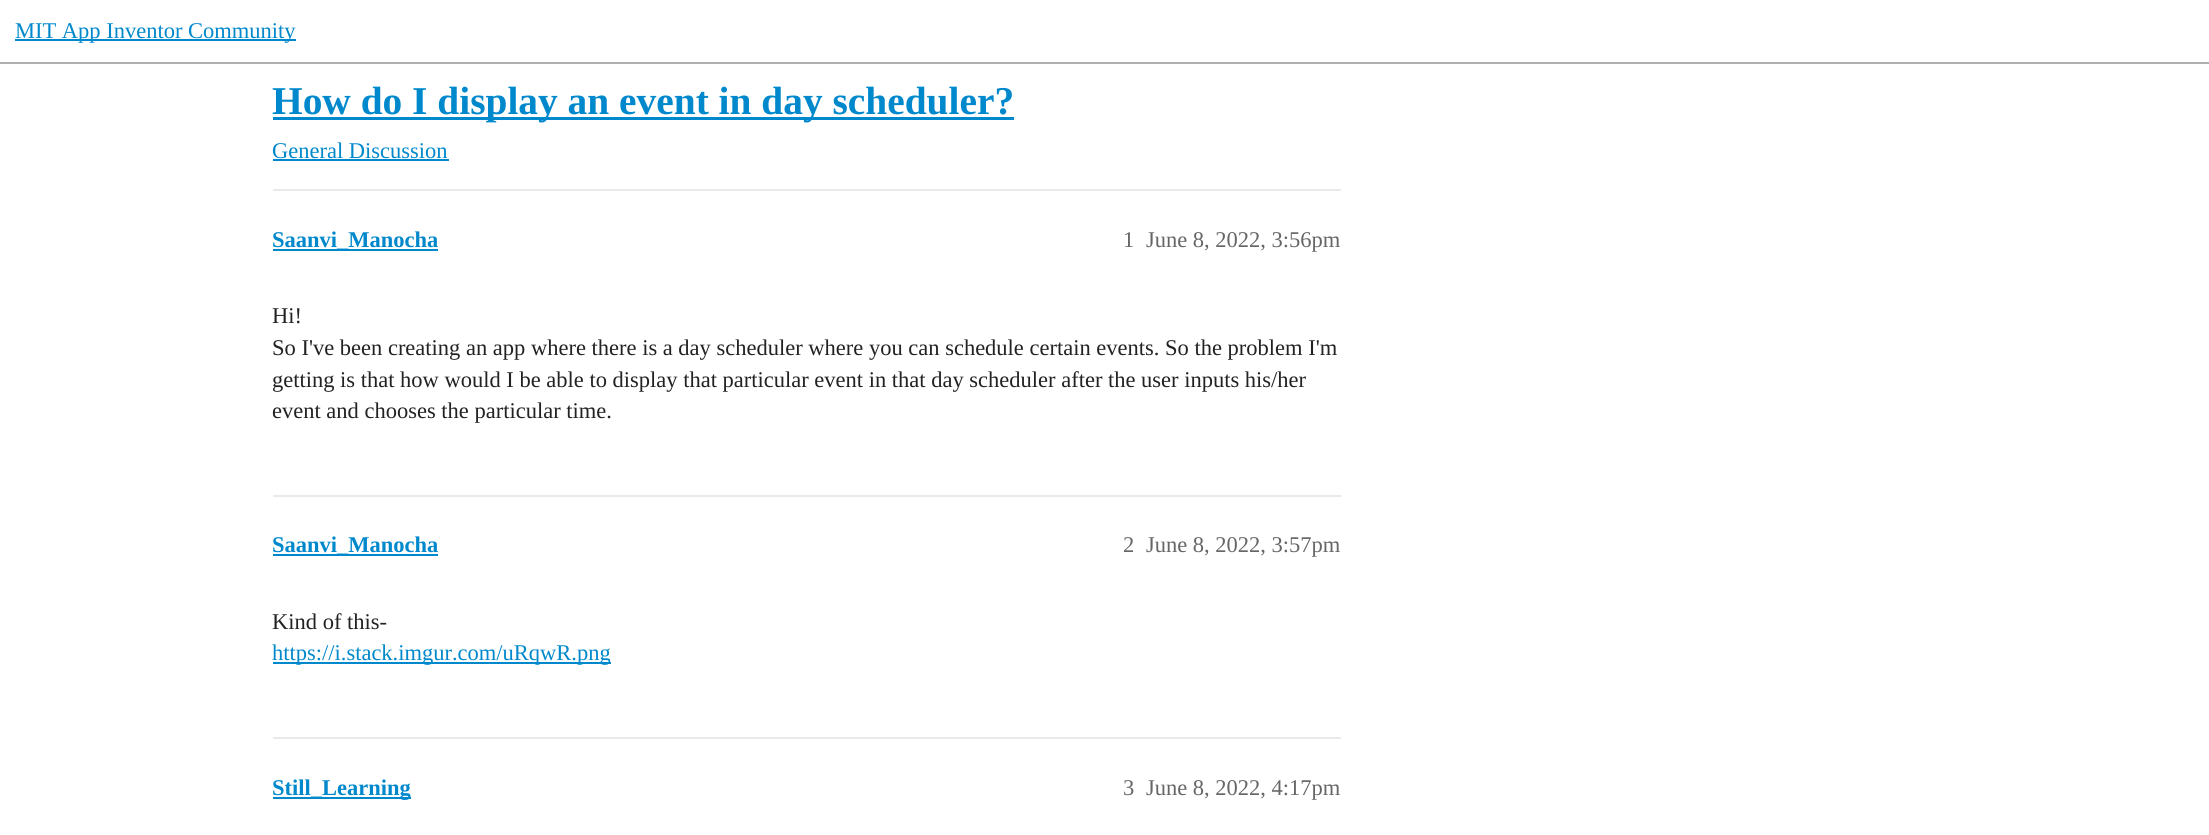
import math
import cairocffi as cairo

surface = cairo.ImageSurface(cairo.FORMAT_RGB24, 2209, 835)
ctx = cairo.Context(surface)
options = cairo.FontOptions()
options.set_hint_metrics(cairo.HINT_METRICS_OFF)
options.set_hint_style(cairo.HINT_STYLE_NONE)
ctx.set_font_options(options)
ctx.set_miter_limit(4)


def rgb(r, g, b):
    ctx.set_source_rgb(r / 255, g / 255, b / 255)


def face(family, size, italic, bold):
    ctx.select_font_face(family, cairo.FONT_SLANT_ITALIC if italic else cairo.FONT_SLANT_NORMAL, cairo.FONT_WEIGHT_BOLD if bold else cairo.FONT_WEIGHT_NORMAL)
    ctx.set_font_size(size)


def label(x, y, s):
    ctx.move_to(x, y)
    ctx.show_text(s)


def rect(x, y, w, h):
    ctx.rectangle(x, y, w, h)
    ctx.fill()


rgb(255, 255, 255)
ctx.paint()
rgb(175, 175, 175)
rect(0, 62, 2209, 2)
rgb(0, 136, 204)
rect(15, 39, 281, 2)
face('Liberation Serif', 22.5, 0, 0)
label(15, 38, 'MIT App Inventor Community')
rect(273, 117, 741, 3)
face('Liberation Serif', 39.4, 0, 1)
label(272, 114, 'How do I display an event in day scheduler?')
face('Liberation Serif', 22.5, 0, 0)
label(272, 158, 'General Discussion')
rect(273, 159, 176, 2)
rgb(233, 233, 233)
rect(273, 189, 1068, 2)
rgb(0, 136, 204)
rect(273, 249, 165, 2)
face('Liberation Serif', 22.5, 0, 1)
label(272, 247, 'Saanvi_Manocha')
face('Liberation Serif', 22.5, 0, 0)
rgb(102, 102, 102)
label(1123, 247, '1')
label(1146, 247, 'June 8, 2022, 3:56pm')
rgb(34, 34, 34)
label(272, 323, 'Hi!')
label(272, 355, 'So I\'ve been creating an app where there is a day scheduler where you can schedule certain events. So the problem I\'m')
label(272, 387, 'getting is that how would I be able to display that particular event in that day scheduler after the user inputs his/her')
label(272, 418, 'event and chooses the particular time.')
rgb(233, 233, 233)
rect(273, 495, 1068, 2)
rgb(0, 136, 204)
rect(273, 554, 165, 2)
face('Liberation Serif', 22.5, 0, 1)
label(272, 552, 'Saanvi_Manocha')
face('Liberation Serif', 22.5, 0, 0)
rgb(102, 102, 102)
label(1123, 552, '2')
label(1146, 552, 'June 8, 2022, 3:57pm')
rgb(34, 34, 34)
label(272, 629, 'Kind of this-')
rgb(0, 136, 204)
rect(273, 662, 338, 2)
label(272, 660, 'https://i.stack.imgur.com/uRqwR.png')
rgb(233, 233, 233)
rect(273, 737, 1068, 2)
rgb(0, 136, 204)
rect(273, 797, 138, 2)
face('Liberation Serif', 22.5, 0, 1)
label(272, 795, 'Still_Learning')
face('Liberation Serif', 22.5, 0, 0)
rgb(102, 102, 102)
label(1123, 795, '3')
label(1146, 795, 'June 8, 2022, 4:17pm')
surface.write_to_png('render.png')
